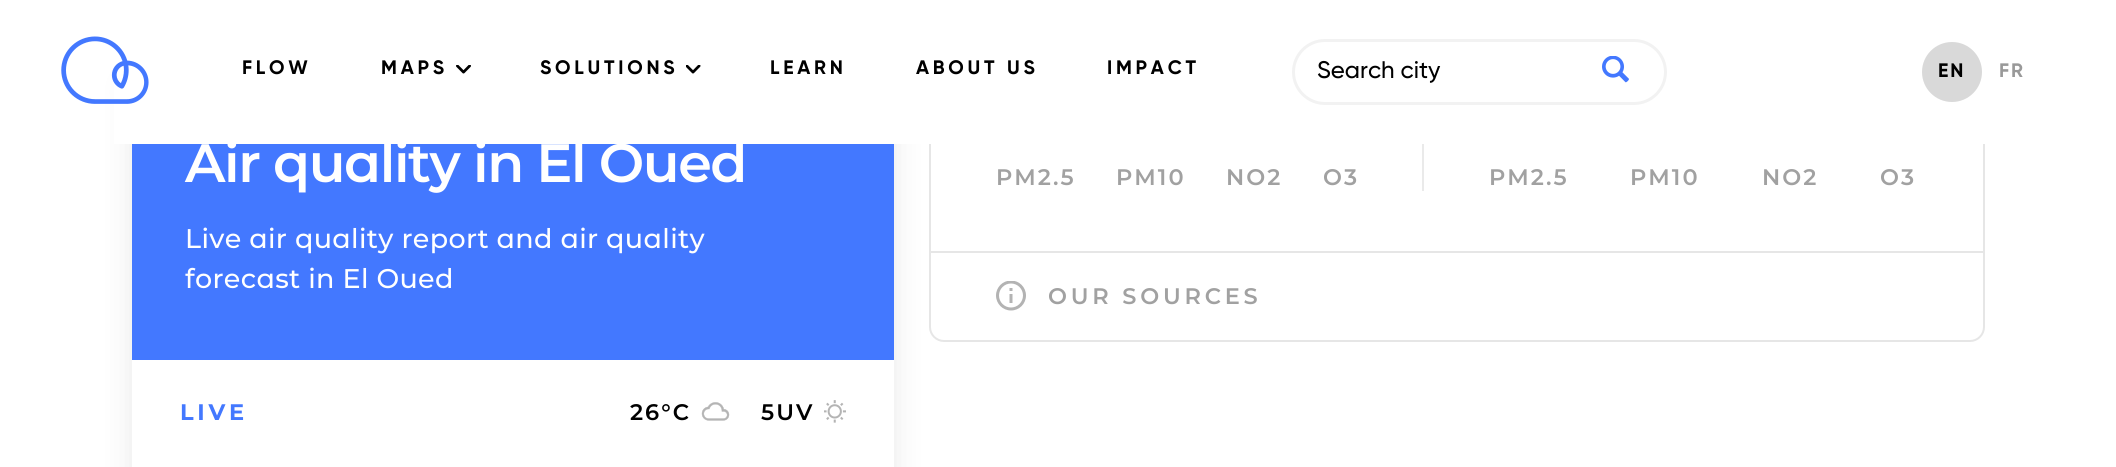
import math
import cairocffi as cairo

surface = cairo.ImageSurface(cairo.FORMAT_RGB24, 2116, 467)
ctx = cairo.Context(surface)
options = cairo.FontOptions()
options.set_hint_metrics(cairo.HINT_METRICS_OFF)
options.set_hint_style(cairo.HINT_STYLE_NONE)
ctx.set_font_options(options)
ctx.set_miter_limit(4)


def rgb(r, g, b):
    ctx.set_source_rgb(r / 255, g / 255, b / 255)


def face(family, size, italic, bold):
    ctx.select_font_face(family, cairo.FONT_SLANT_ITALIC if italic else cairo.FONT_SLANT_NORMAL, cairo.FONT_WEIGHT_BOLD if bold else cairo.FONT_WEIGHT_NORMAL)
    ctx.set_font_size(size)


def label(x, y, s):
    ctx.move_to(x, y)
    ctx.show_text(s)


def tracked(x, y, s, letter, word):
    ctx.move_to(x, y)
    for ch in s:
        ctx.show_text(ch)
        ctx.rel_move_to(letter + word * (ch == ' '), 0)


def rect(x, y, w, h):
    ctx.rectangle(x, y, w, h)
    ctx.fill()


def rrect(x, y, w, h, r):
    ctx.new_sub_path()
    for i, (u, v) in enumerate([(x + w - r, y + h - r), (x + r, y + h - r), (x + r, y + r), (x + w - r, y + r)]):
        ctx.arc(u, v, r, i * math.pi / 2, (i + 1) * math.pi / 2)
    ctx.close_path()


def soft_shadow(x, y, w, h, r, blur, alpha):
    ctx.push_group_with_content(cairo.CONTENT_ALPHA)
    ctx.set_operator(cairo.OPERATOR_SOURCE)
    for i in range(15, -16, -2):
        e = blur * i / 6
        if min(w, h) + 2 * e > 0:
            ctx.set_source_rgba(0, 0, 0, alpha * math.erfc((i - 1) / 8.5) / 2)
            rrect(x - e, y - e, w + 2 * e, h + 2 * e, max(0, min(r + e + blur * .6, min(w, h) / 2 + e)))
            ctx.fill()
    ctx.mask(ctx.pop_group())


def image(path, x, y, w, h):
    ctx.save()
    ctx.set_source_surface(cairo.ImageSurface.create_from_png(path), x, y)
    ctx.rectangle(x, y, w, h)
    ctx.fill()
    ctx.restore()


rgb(255, 255, 255)
ctx.paint()
rrect(930, -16, 1054, 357, 14)
rgb(230, 230, 230)
ctx.stroke()
rect(930, 251, 1053, 2)
ctx.save()
ctx.set_fill_rule(cairo.FILL_RULE_EVEN_ODD)
ctx.new_path()
ctx.move_to(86, 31)
ctx.line_to(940, 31)
ctx.line_to(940, 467)
ctx.line_to(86, 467)
ctx.close_path()
ctx.move_to(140, 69)
ctx.line_to(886, 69)
ctx.curve_to(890.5, 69, 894, 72.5, 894, 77)
ctx.line_to(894, 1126)
ctx.curve_to(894, 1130.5, 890.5, 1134, 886, 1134)
ctx.line_to(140, 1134)
ctx.curve_to(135.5, 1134, 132, 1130.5, 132, 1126)
ctx.line_to(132, 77)
ctx.curve_to(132, 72.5, 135.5, 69, 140, 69)
ctx.close_path()
ctx.clip()
rgb(0, 0, 0)
soft_shadow(132, 77, 762, 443, 8, 15, 0.09)
ctx.restore()
rgb(255, 255, 255)
rect(114, 0, 1871, 144)
image('image0.png', 61, 36, 88, 68)
face('Gilroy', 19.5, 0, 1)
rgb(0, 0, 0)
tracked(242, 74, 'FLOW', 3.75, 0)
tracked(381, 74, 'MAPS', 3.75, 0)
image('image1.png', 456, 65, 15, 9)
tracked(540, 74, 'SOLUTIONS', 3.75, 0)
image('image2.png', 686, 65, 15, 9)
tracked(770, 74, 'LEARN', 3.75, 0)
tracked(916, 74, 'ABOUT US', 3.75, 0)
tracked(1107, 74, 'IMPACT', 3.75, 0)
rrect(1293.5, 40.5, 372, 63, 31.5)
rgb(242, 242, 242)
ctx.set_line_width(3)
ctx.stroke()
face('Gilroy Medium', 24, 0, 0)
rgb(0, 0, 0)
label(1317, 78, 'Search city')
image('image3.png', 1602, 56, 27, 27)
rgb(217, 217, 217)
ctx.arc(1952, 72, 30, 0, 2 * math.pi)
ctx.fill()
face('Gilroy', 19.5, 0, 1)
rgb(0, 0, 0)
tracked(1938, 77, 'EN', 2, 0)
rgb(153, 153, 153)
tracked(1999, 77, 'FR', 2, 0)
rgb(67, 120, 255)
rect(132, 144, 762, 216)
face('Montserrat SemiBold', 54, 0, 0)
rgb(255, 255, 255)
tracked(185, 182, 'Air quality in El Oued', -1.4, 0)
face('Montserrat Medium', 27, 0, 0)
tracked(185, 248, 'Live air quality report and air quality', 0.35, 0)
tracked(185, 288, 'forecast in El Oued', 0.35, 0)
face('Montserrat', 22.5, 0, 1)
rgb(67, 120, 255)
tracked(180, 420, 'LIVE', 3.75, 0)
face('Montserrat SemiBold', 22.5, 0, 0)
rgb(0, 0, 0)
tracked(630, 420, '26°C', 2, 0)
image('image4.png', 701, 402, 29, 19)
tracked(761, 420, '5UV', 2, 0)
image('image5.png', 824, 400, 22, 23)
rgb(234, 234, 234)
rect(1422, 144, 2, 47)
rgb(161, 161, 161)
tracked(996, 185, 'PM2.5', 2, 0)
tracked(1116, 185, 'PM10', 2, 0)
tracked(1226, 185, 'NO2', 2, 0)
tracked(1323, 185, 'O3', 2, 0)
tracked(1489, 185, 'PM2.5', 2, 0)
tracked(1630, 185, 'PM10', 2, 0)
tracked(1762, 185, 'NO2', 2, 0)
tracked(1880, 185, 'O3', 2, 0)
image('image6.png', 996, 281, 30, 30)
tracked(1048, 304, 'OUR SOURCES', 3.75, 0)
surface.write_to_png('render.png')
